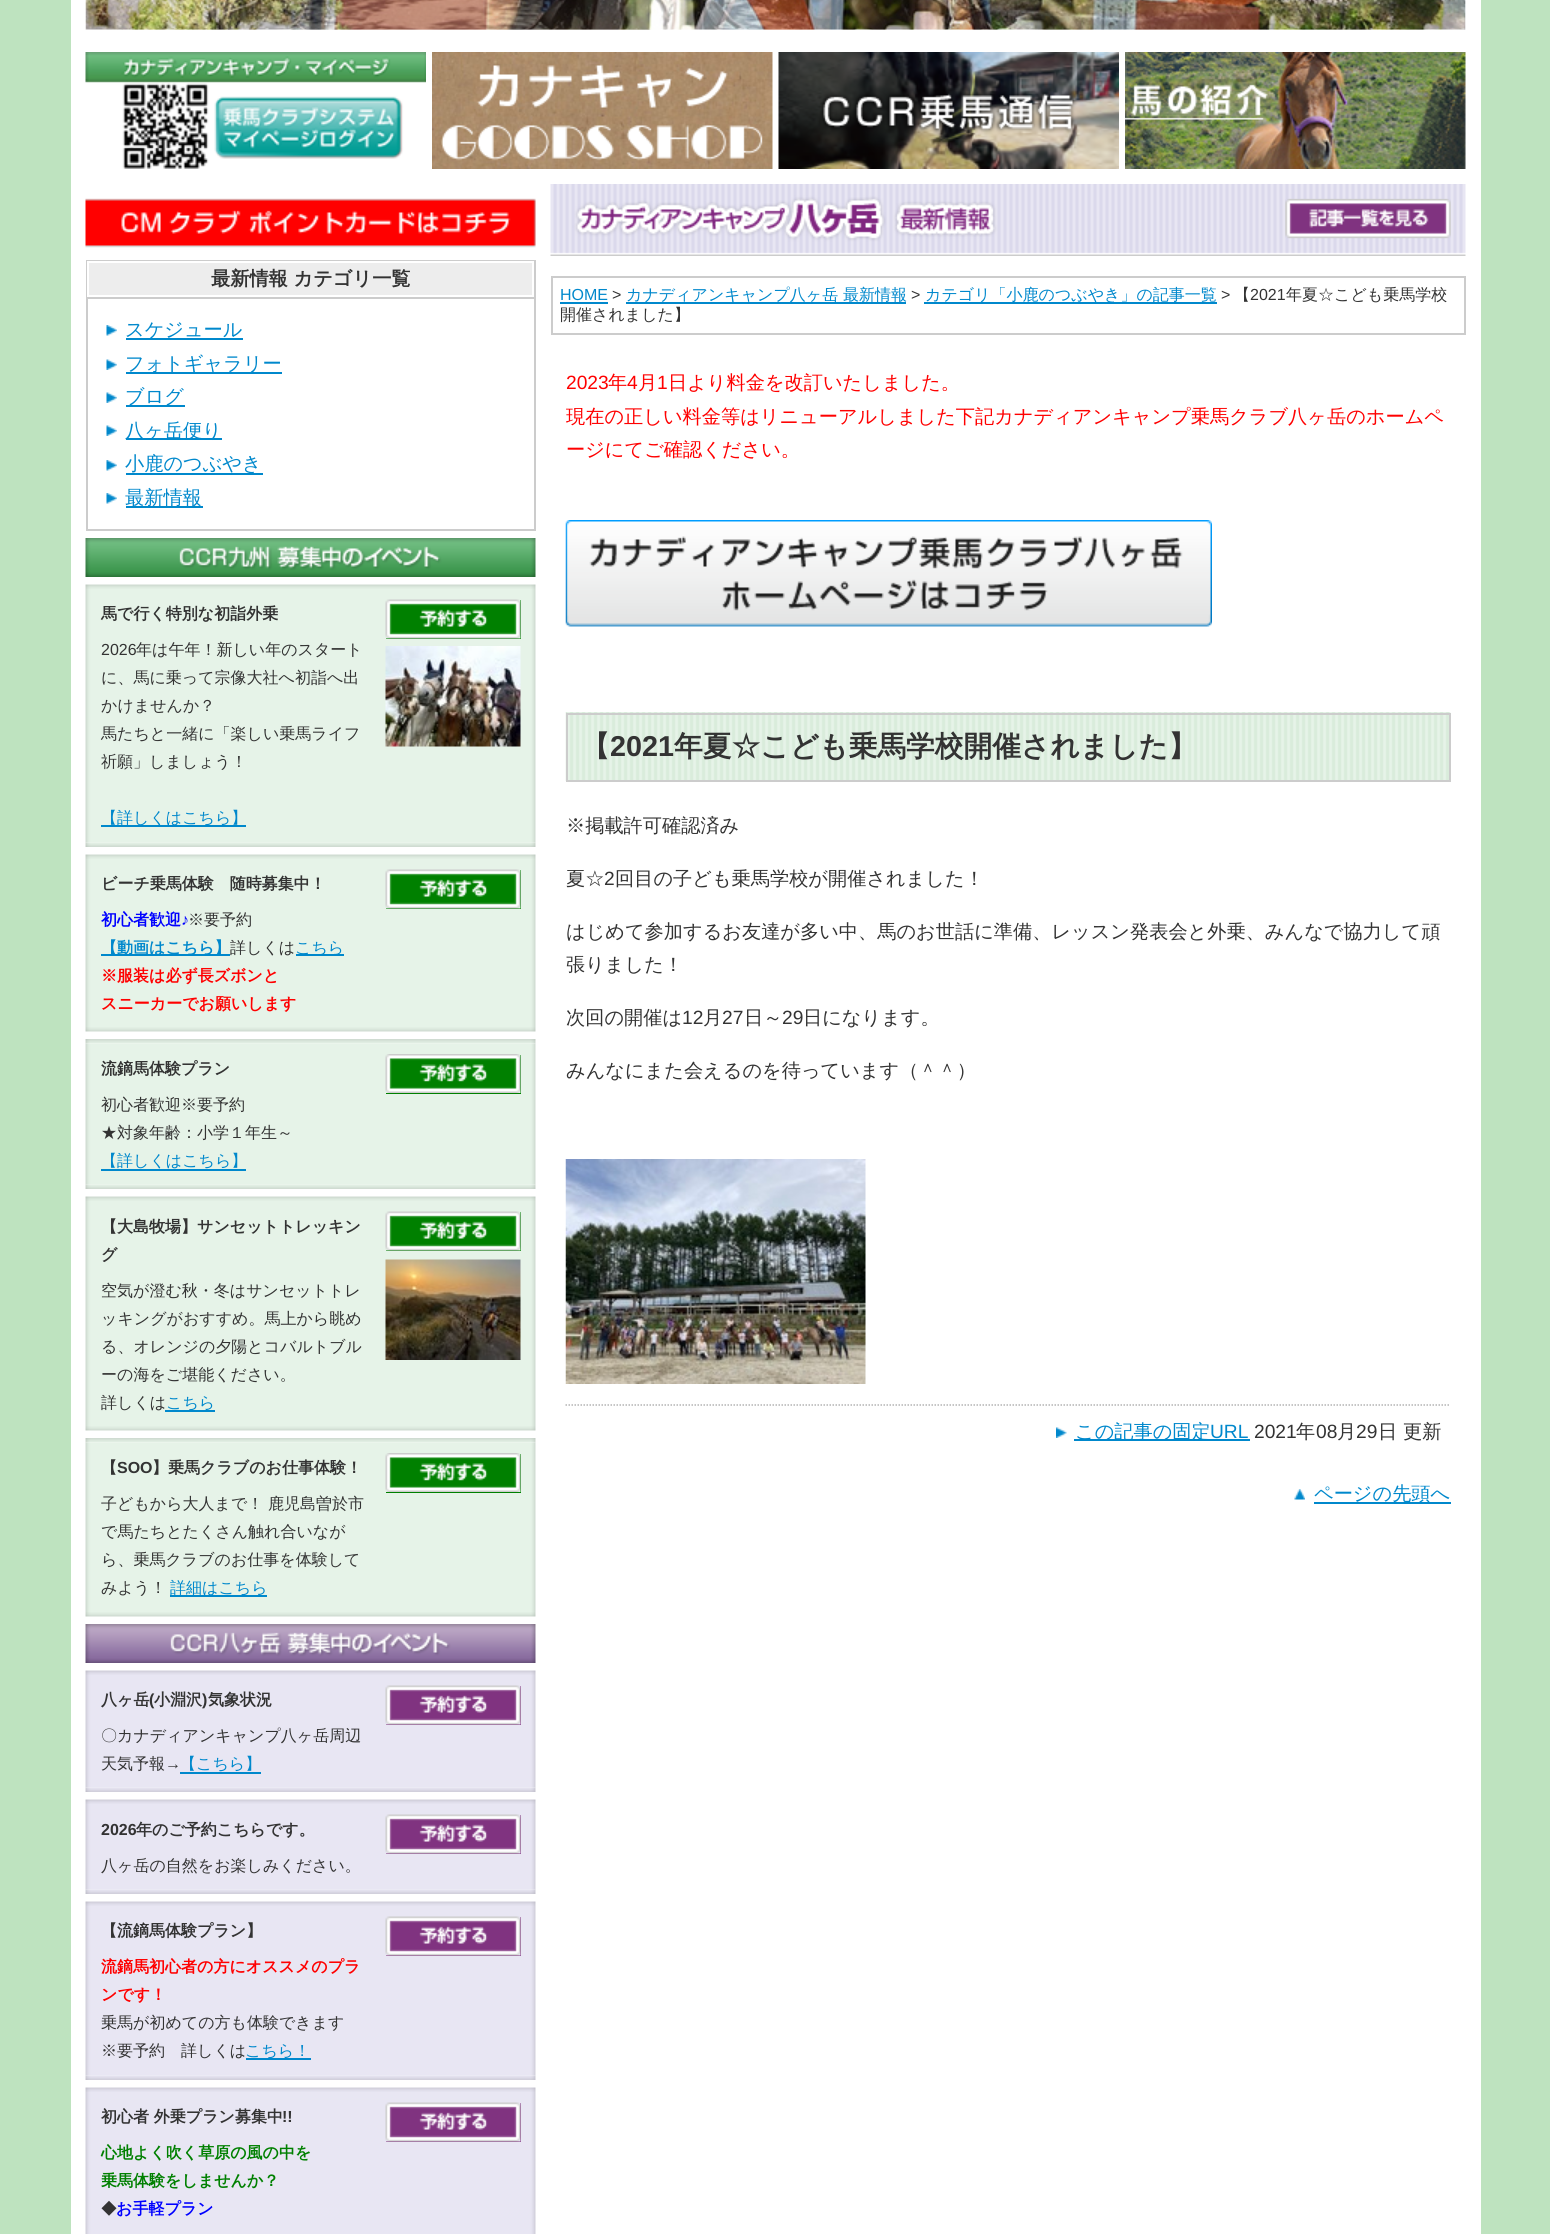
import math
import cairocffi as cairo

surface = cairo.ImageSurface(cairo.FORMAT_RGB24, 1550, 2234)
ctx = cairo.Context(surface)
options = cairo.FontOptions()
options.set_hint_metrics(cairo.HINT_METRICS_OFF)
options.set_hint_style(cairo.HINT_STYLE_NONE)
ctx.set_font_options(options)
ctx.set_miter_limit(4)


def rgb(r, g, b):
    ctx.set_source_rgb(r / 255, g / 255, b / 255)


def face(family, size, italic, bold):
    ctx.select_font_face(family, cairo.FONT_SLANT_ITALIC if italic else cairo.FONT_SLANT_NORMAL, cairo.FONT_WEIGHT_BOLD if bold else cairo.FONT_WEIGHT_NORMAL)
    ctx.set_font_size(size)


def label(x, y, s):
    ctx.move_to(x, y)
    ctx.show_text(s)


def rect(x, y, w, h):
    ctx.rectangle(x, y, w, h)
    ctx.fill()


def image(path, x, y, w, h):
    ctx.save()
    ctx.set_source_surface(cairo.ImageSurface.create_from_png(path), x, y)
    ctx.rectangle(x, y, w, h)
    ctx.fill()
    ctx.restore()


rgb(190, 227, 191)
ctx.paint()
rgb(255, 255, 255)
rect(71, 0, 1410, 2234)
image('image0.png', 85, 0, 1381, 30)
image('image1.png', 85, 0, 1381, 30)
image('image2.png', 85, 52, 341, 117)
image('image3.png', 432, 52, 341, 117)
image('image4.png', 778, 52, 341, 117)
image('image5.png', 1125, 52, 341, 117)
image('image6.png', 85, 198, 451, 50)
ctx.rectangle(87, 261, 448, 269)
rgb(204, 204, 204)
ctx.stroke()
rect(87, 297, 447, 2)
rgb(237, 237, 237)
ctx.rectangle(88, 262, 445, 34)
ctx.fill_preserve()
rgb(255, 255, 255)
ctx.stroke()
face('WenQuanYi Zen Hei', 19.2, 0, 1)
rgb(51, 51, 51)
label(211, 285, '最新情報 カテゴリ一覧')
image('image7.png', 106, 325, 11, 11)
rgb(0, 136, 204)
rect(126, 338, 117, 2)
face('WenQuanYi Zen Hei Medium', 19.2, 0, 0)
label(125, 336, 'スケジュール')
image('image8.png', 106, 359, 11, 11)
rect(126, 372, 156, 2)
label(125, 370, 'フォトギャラリー')
image('image8.png', 106, 392, 11, 11)
rect(126, 405, 59, 2)
label(125, 403, 'ブログ')
image('image8.png', 106, 425, 11, 11)
rect(126, 438, 96, 2)
label(125, 437, '八ヶ岳便り')
image('image7.png', 106, 460, 11, 11)
rect(126, 473, 137, 2)
label(125, 470, '小鹿のつぶやき')
image('image7.png', 106, 493, 11, 11)
rect(126, 506, 77, 2)
label(125, 504, '最新情報')
image('image9.png', 85, 538, 451, 39)
image('image10.png', 85, 584, 451, 5)
image('image11.png', 85, 589, 451, 254)
face('WenQuanYi Zen Hei', 16, 0, 1)
rgb(51, 51, 51)
label(101, 619, '馬で行く特別な初詣外乗')
face('Liberation Sans', 16, 0, 0)
label(101, 655, '2026')
face('WenQuanYi Zen Hei Medium', 16, 0, 0)
label(136, 655, '年は午年！新しい年のスタート')
label(101, 683, 'に、馬に乗って宗像大社へ初詣へ出')
label(101, 711, 'かけませんか？')
label(101, 739, '馬たちと一緒に「楽しい乗馬ライフ')
label(101, 767, '祈願」しましょう！')
rgb(0, 136, 204)
rect(101, 825, 145, 2)
label(101, 823, '【詳しくはこちら】')
rgb(0, 128, 0)
rect(386, 600, 135, 39)
image('image12.png', 385, 599, 136, 40)
image('image13.png', 385, 646, 136, 101)
image('image14.png', 85, 842, 451, 5)
image('image10.png', 85, 854, 451, 5)
image('image15.png', 85, 859, 451, 168)
face('WenQuanYi Zen Hei', 16, 0, 1)
rgb(51, 51, 51)
label(101, 889, 'ビーチ乗馬体験　随時募集中！')
rgb(0, 0, 255)
label(101, 925, '初心者歓迎')
face('Liberation Sans', 16, 0, 1)
label(181, 925, '♪')
face('WenQuanYi Zen Hei Medium', 16, 0, 0)
rgb(51, 51, 51)
label(188, 925, '※要予約')
rgb(0, 136, 204)
rect(101, 954, 129, 2)
face('WenQuanYi Zen Hei', 16, 0, 1)
label(101, 953, '【動画はこちら】')
face('WenQuanYi Zen Hei Medium', 16, 0, 0)
rgb(51, 51, 51)
label(230, 953, '詳しくは')
rgb(0, 136, 204)
rect(296, 954, 48, 2)
label(295, 953, 'こちら')
face('WenQuanYi Zen Hei', 16, 0, 1)
rgb(255, 0, 0)
label(101, 981, '※服装は必ず長ズボンと')
label(101, 1009, 'スニーカーでお願いします')
rgb(0, 128, 0)
rect(386, 870, 135, 39)
image('image12.png', 385, 869, 136, 40)
image('image16.png', 85, 1027, 451, 5)
image('image17.png', 85, 1039, 451, 5)
image('image18.png', 85, 1043, 451, 142)
rgb(51, 51, 51)
label(101, 1074, '流鏑馬体験プラン')
face('WenQuanYi Zen Hei Medium', 16, 0, 0)
label(101, 1110, '初心者歓迎※要予約')
label(101, 1138, '★対象年齢：小学１年生～')
rgb(0, 136, 204)
label(101, 1166, '【詳しくはこちら】')
rect(101, 1169, 145, 2)
rgb(0, 128, 0)
rect(386, 1055, 135, 39)
image('image19.png', 385, 1054, 136, 39)
image('image14.png', 85, 1184, 451, 5)
image('image10.png', 85, 1196, 451, 5)
image('image20.png', 85, 1201, 451, 225)
face('WenQuanYi Zen Hei', 16, 0, 1)
rgb(51, 51, 51)
label(101, 1232, '【大島牧場】サンセットトレッキン')
label(101, 1260, 'グ')
face('WenQuanYi Zen Hei Medium', 16, 0, 0)
label(101, 1296, '空気が澄む秋・冬はサンセットトレ')
label(101, 1324, 'ッキングがおすすめ。馬上から眺め')
label(101, 1352, 'る、オレンジの夕陽とコバルトブル')
label(101, 1380, 'ーの海をご堪能ください。')
label(101, 1408, '詳しくは')
rgb(0, 136, 204)
rect(165, 1410, 50, 2)
label(166, 1408, 'こちら')
rgb(0, 128, 0)
rect(386, 1212, 135, 39)
image('image12.png', 385, 1211, 136, 40)
image('image21.png', 385, 1259, 136, 101)
image('image16.png', 85, 1426, 451, 5)
image('image17.png', 85, 1438, 451, 5)
image('image22.png', 85, 1442, 451, 170)
face('WenQuanYi Zen Hei', 16, 0, 1)
rgb(51, 51, 51)
label(101, 1473, '【')
face('Liberation Sans', 16, 0, 1)
label(117, 1473, 'SOO')
face('WenQuanYi Zen Hei', 16, 0, 1)
label(152, 1473, '】乗馬クラブのお仕事体験！')
face('WenQuanYi Zen Hei Medium', 16, 0, 0)
label(101, 1509, '子どもから大人まで！ 鹿児島曽於市')
label(101, 1537, 'で馬たちとたくさん触れ合いなが')
label(101, 1565, 'ら、乗馬クラブのお仕事を体験して')
label(101, 1593, 'みよう！')
rgb(0, 136, 204)
rect(170, 1595, 97, 2)
label(170, 1593, '詳細はこちら')
rgb(0, 128, 0)
rect(386, 1454, 135, 39)
image('image19.png', 385, 1453, 136, 39)
image('image16.png', 85, 1612, 451, 5)
image('image23.png', 85, 1624, 451, 39)
image('image24.png', 85, 1670, 451, 5)
image('image25.png', 85, 1675, 451, 113)
face('WenQuanYi Zen Hei', 16, 0, 1)
rgb(51, 51, 51)
label(101, 1705, '八ヶ岳')
face('Liberation Sans', 16, 0, 1)
label(149, 1705, '(')
face('WenQuanYi Zen Hei', 16, 0, 1)
label(154, 1705, '小淵沢')
face('Liberation Sans', 16, 0, 1)
label(202, 1705, ')')
face('WenQuanYi Zen Hei', 16, 0, 1)
label(208, 1705, '気象状況')
face('WenQuanYi Zen Hei Medium', 16, 0, 0)
label(101, 1741, '〇カナディアンキャンプ八ヶ岳周辺')
label(101, 1769, '天気予報')
face('Liberation Sans', 16, 0, 0)
label(165, 1769, '→')
face('WenQuanYi Zen Hei Medium', 16, 0, 0)
rgb(0, 136, 204)
label(180, 1769, '【こちら】')
rect(180, 1772, 81, 2)
rgb(128, 51, 128)
rect(386, 1686, 135, 39)
image('image26.png', 385, 1685, 136, 40)
image('image27.png', 85, 1787, 451, 5)
image('image24.png', 85, 1799, 451, 5)
image('image28.png', 85, 1804, 451, 86)
face('Liberation Sans', 16, 0, 1)
rgb(51, 51, 51)
label(101, 1835, '2026')
face('WenQuanYi Zen Hei', 16, 0, 1)
label(136, 1835, '年のご予約こちらです。')
face('WenQuanYi Zen Hei Medium', 16, 0, 0)
label(101, 1871, '八ヶ岳の自然をお楽しみください。')
rgb(128, 51, 128)
rect(386, 1815, 135, 39)
image('image26.png', 385, 1814, 136, 40)
image('image27.png', 85, 1889, 451, 5)
image('image24.png', 85, 1901, 451, 5)
image('image29.png', 85, 1906, 451, 170)
face('WenQuanYi Zen Hei', 16, 0, 1)
rgb(51, 51, 51)
label(101, 1936, '【流鏑馬体験プラン】')
rgb(255, 0, 0)
label(101, 1972, '流鏑馬初心者の方にオススメのプラ')
label(101, 2000, 'ンです！')
face('WenQuanYi Zen Hei Medium', 16, 0, 0)
rgb(51, 51, 51)
label(101, 2028, '乗馬が初めての方も体験できます')
label(101, 2056, '※要予約　詳しくは')
rgb(0, 136, 204)
rect(246, 2058, 65, 2)
label(245, 2056, 'こちら！')
rgb(128, 51, 128)
rect(386, 1917, 135, 39)
image('image26.png', 385, 1916, 136, 40)
image('image27.png', 85, 2075, 451, 5)
image('image24.png', 85, 2087, 451, 5)
image('image30.png', 85, 2092, 451, 142)
face('WenQuanYi Zen Hei', 16, 0, 1)
rgb(51, 51, 51)
label(101, 2122, '初心者 外乗プラン募集中')
face('Liberation Sans', 16, 0, 1)
label(282, 2122, '!!')
face('WenQuanYi Zen Hei', 16, 0, 1)
rgb(0, 128, 0)
label(101, 2158, '心地よく吹く草原の風の中を')
label(101, 2186, '乗馬体験をしませんか？')
face('WenQuanYi Zen Hei Medium', 16, 0, 0)
rgb(51, 51, 51)
label(101, 2214, '◆')
face('WenQuanYi Zen Hei', 16, 0, 1)
rgb(0, 0, 255)
label(116, 2214, 'お手軽プラン')
rgb(128, 51, 128)
rect(386, 2103, 135, 39)
image('image26.png', 385, 2102, 136, 40)
image('image31.png', 550, 184, 916, 72)
image('image32.png', 1285, 199, 166, 39)
ctx.rectangle(552, 277, 913, 57)
rgb(204, 204, 204)
ctx.stroke()
face('Liberation Sans', 16, 0, 0)
rgb(0, 136, 204)
label(560, 300, 'HOME')
rect(560, 302, 48, 2)
rgb(51, 51, 51)
label(612, 300, '>')
rgb(0, 136, 204)
rect(626, 302, 280, 2)
face('WenQuanYi Zen Hei Medium', 16, 0, 0)
label(626, 300, 'カナディアンキャンプ八ヶ岳 最新情報')
face('Liberation Sans', 16, 0, 0)
rgb(51, 51, 51)
label(911, 300, '>')
rgb(0, 136, 204)
rect(924, 302, 293, 2)
face('WenQuanYi Zen Hei Medium', 16, 0, 0)
label(925, 300, 'カテゴリ「小鹿のつぶやき」の記事一覧')
face('Liberation Sans', 16, 0, 0)
rgb(51, 51, 51)
label(1221, 300, '>')
face('WenQuanYi Zen Hei Medium', 16, 0, 0)
label(1234, 300, '【')
face('Liberation Sans', 16, 0, 0)
label(1250, 300, '2021')
face('WenQuanYi Zen Hei Medium', 16, 0, 0)
label(1286, 300, '年夏☆こども乗馬学校')
label(560, 320, '開催されました】')
face('Liberation Sans', 19.2, 0, 0)
rgb(255, 0, 0)
label(566, 389, '2023')
face('WenQuanYi Zen Hei Medium', 19.2, 0, 0)
label(608, 389, '年')
face('Liberation Sans', 19.2, 0, 0)
label(627, 389, '4')
face('WenQuanYi Zen Hei Medium', 19.2, 0, 0)
label(638, 389, '月')
face('Liberation Sans', 19.2, 0, 0)
label(657, 389, '1')
face('WenQuanYi Zen Hei Medium', 19.2, 0, 0)
label(668, 389, '日より料金を改訂いたしました。')
ctx.save()
ctx.rectangle(566, 366, 885, 1164)
ctx.clip()
label(566, 423, '現在の正しい料金等はリニューアルしました下記カナディアンキャンプ乗馬クラブ八ヶ岳のホームペ')
ctx.restore()
label(566, 456, 'ージにてご確認ください。')
image('image33.png', 565, 520, 647, 107)
image('image34.png', 565, 712, 886, 69)
ctx.rectangle(567, 714, 883, 67)
rgb(204, 204, 204)
ctx.stroke()
face('WenQuanYi Zen Hei', 28.75, 0, 1)
rgb(51, 51, 51)
label(581, 756, '【')
face('Liberation Sans', 28.75, 0, 1)
label(610, 756, '2021')
face('WenQuanYi Zen Hei', 28.75, 0, 1)
label(674, 756, '年夏☆こども乗馬学校開催されました】')
face('WenQuanYi Zen Hei Medium', 19.2, 0, 0)
label(566, 832, '※掲載許可確認済み')
label(566, 885, '夏☆')
face('Liberation Sans', 19.2, 0, 0)
label(604, 885, '2')
face('WenQuanYi Zen Hei Medium', 19.2, 0, 0)
label(615, 885, '回目の子ども乗馬学校が開催されました！')
label(566, 938, 'はじめて参加するお友達が多い中、馬のお世話に準備、レッスン発表会と外乗、みんなで協力して頑')
label(566, 971, '張りました！')
label(566, 1024, '次回の開催は')
face('Liberation Sans', 19.2, 0, 0)
label(682, 1024, '12')
face('WenQuanYi Zen Hei Medium', 19.2, 0, 0)
label(703, 1024, '月')
face('Liberation Sans', 19.2, 0, 0)
label(722, 1024, '27')
face('WenQuanYi Zen Hei Medium', 19.2, 0, 0)
label(744, 1024, '日～')
face('Liberation Sans', 19.2, 0, 0)
label(782, 1024, '29')
face('WenQuanYi Zen Hei Medium', 19.2, 0, 0)
label(803, 1024, '日になります。')
label(566, 1077, 'みんなにまた会えるのを待っています（＾＾）')
image('image35.png', 565, 1159, 301, 225)
ctx.new_path()
ctx.move_to(565.5, 1405)
ctx.line_to(1450.5, 1405)
rgb(179, 179, 179)
ctx.set_line_width(1.5)
ctx.set_dash([1.5, 1.5])
ctx.stroke()
image('image36.png', 1056, 1427, 11, 11)
rgb(0, 136, 204)
rect(1074, 1439, 176, 2)
label(1075, 1438, 'この記事の固定')
face('Liberation Sans', 19.2, 0, 0)
label(1210, 1438, 'URL')
rgb(51, 51, 51)
label(1254, 1438, '2021')
face('WenQuanYi Zen Hei Medium', 19.2, 0, 0)
label(1296, 1438, '年')
face('Liberation Sans', 19.2, 0, 0)
label(1316, 1438, '08')
face('WenQuanYi Zen Hei Medium', 19.2, 0, 0)
label(1337, 1438, '月')
face('Liberation Sans', 19.2, 0, 0)
label(1356, 1438, '29')
face('WenQuanYi Zen Hei Medium', 19.2, 0, 0)
label(1378, 1438, '日 更新')
image('image37.png', 1294, 1489, 11, 11)
rgb(0, 136, 204)
rect(1314, 1502, 137, 2)
label(1314, 1500, 'ページの先頭へ')
surface.write_to_png('render.png')
